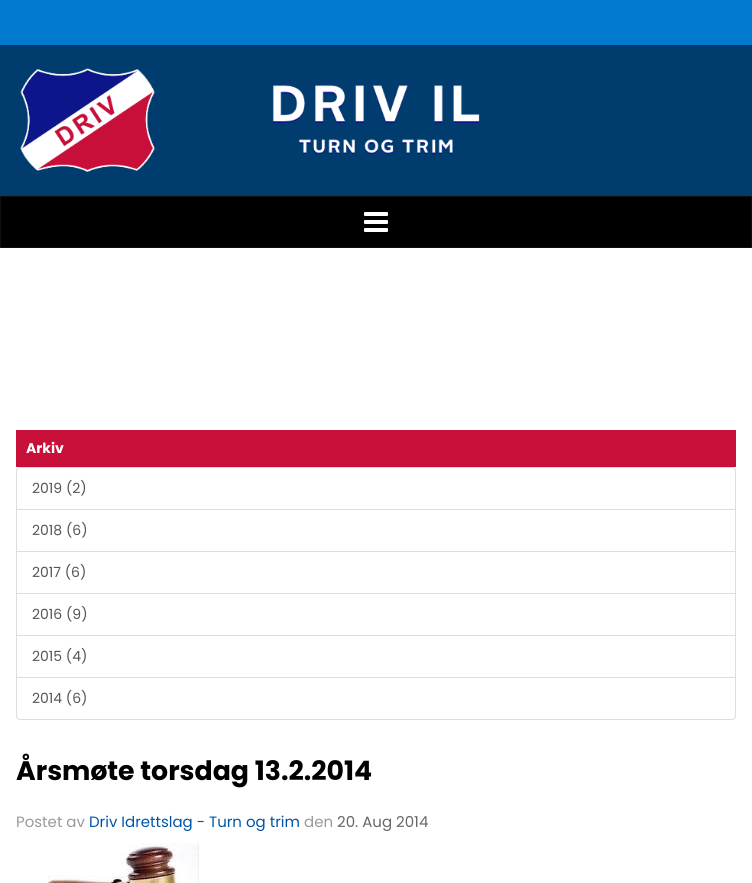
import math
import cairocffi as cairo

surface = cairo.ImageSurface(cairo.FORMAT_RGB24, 752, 883)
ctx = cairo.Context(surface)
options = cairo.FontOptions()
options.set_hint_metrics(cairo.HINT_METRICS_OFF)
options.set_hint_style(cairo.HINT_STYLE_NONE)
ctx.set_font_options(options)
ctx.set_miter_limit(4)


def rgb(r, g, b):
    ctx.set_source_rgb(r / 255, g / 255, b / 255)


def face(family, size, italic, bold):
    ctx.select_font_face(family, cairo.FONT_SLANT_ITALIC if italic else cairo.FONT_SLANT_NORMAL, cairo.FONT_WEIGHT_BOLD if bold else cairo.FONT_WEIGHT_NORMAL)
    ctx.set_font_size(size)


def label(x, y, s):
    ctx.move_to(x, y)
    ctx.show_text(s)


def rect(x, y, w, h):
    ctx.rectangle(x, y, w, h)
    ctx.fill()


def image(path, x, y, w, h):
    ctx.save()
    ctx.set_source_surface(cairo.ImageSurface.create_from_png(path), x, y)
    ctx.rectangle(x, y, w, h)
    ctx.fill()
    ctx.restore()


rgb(0, 121, 207)
ctx.paint()
image('image0.png', 0, 45, 752, 151)
rgb(0, 0, 0)
ctx.rectangle(0.5, 196.5, 751, 51)
ctx.fill_preserve()
rgb(16, 16, 16)
ctx.set_line_width(1)
ctx.stroke()
image('image1.png', 364, 212, 24, 20)
rgb(255, 255, 255)
rect(0, 248, 752, 635)
rgb(199, 15, 58)
rect(16, 430, 720, 37)
face('Poppins', 14, 0, 1)
rgb(255, 255, 255)
label(26, 453, 'Arkiv')
ctx.new_path()
ctx.move_to(20, 467.5)
ctx.line_to(732, 467.5)
ctx.curve_to(734, 467.5, 735.5, 469, 735.5, 471)
ctx.line_to(735.5, 509.5)
ctx.line_to(16.5, 509.5)
ctx.line_to(16.5, 471)
ctx.curve_to(16.5, 469, 18, 467.5, 20, 467.5)
ctx.close_path()
rgb(221, 221, 221)
ctx.stroke()
face('Poppins', 14, 0, 0)
rgb(85, 85, 85)
label(32, 493, '2019 (2)')
ctx.rectangle(16.5, 509.5, 719, 42)
rgb(221, 221, 221)
ctx.stroke()
rgb(85, 85, 85)
label(32, 535, '2018 (6)')
ctx.rectangle(16.5, 551.5, 719, 42)
rgb(221, 221, 221)
ctx.stroke()
rgb(85, 85, 85)
label(32, 577, '2017 (6)')
ctx.rectangle(16.5, 593.5, 719, 42)
rgb(221, 221, 221)
ctx.stroke()
rgb(85, 85, 85)
label(32, 619, '2016 (9)')
ctx.rectangle(16.5, 635.5, 719, 42)
rgb(221, 221, 221)
ctx.stroke()
rgb(85, 85, 85)
label(32, 661, '2015 (4)')
rgb(255, 255, 255)
ctx.new_path()
ctx.move_to(16.5, 677.5)
ctx.line_to(735.5, 677.5)
ctx.line_to(735.5, 716)
ctx.curve_to(735.5, 718, 734, 719.5, 732, 719.5)
ctx.line_to(20, 719.5)
ctx.curve_to(18, 719.5, 16.5, 718, 16.5, 716)
ctx.close_path()
ctx.fill_preserve()
rgb(221, 221, 221)
ctx.stroke()
rgb(85, 85, 85)
label(32, 703, '2014 (6)')
face('Poppins', 26.75, 0, 1)
rgb(0, 0, 0)
label(16, 780, 'Årsmøte torsdag 13.2.2014')
face('Poppins', 15, 0, 0)
rgb(153, 153, 153)
label(16, 827, 'Postet av')
rgb(0, 84, 166)
label(89, 827, 'Driv Idrettslag - Turn og trim')
rgb(153, 153, 153)
label(304, 827, 'den')
rgb(102, 102, 102)
label(337, 827, '20. Aug 2014')
image('image2.png', 47, 843, 152, 40)
surface.write_to_png('render.png')
